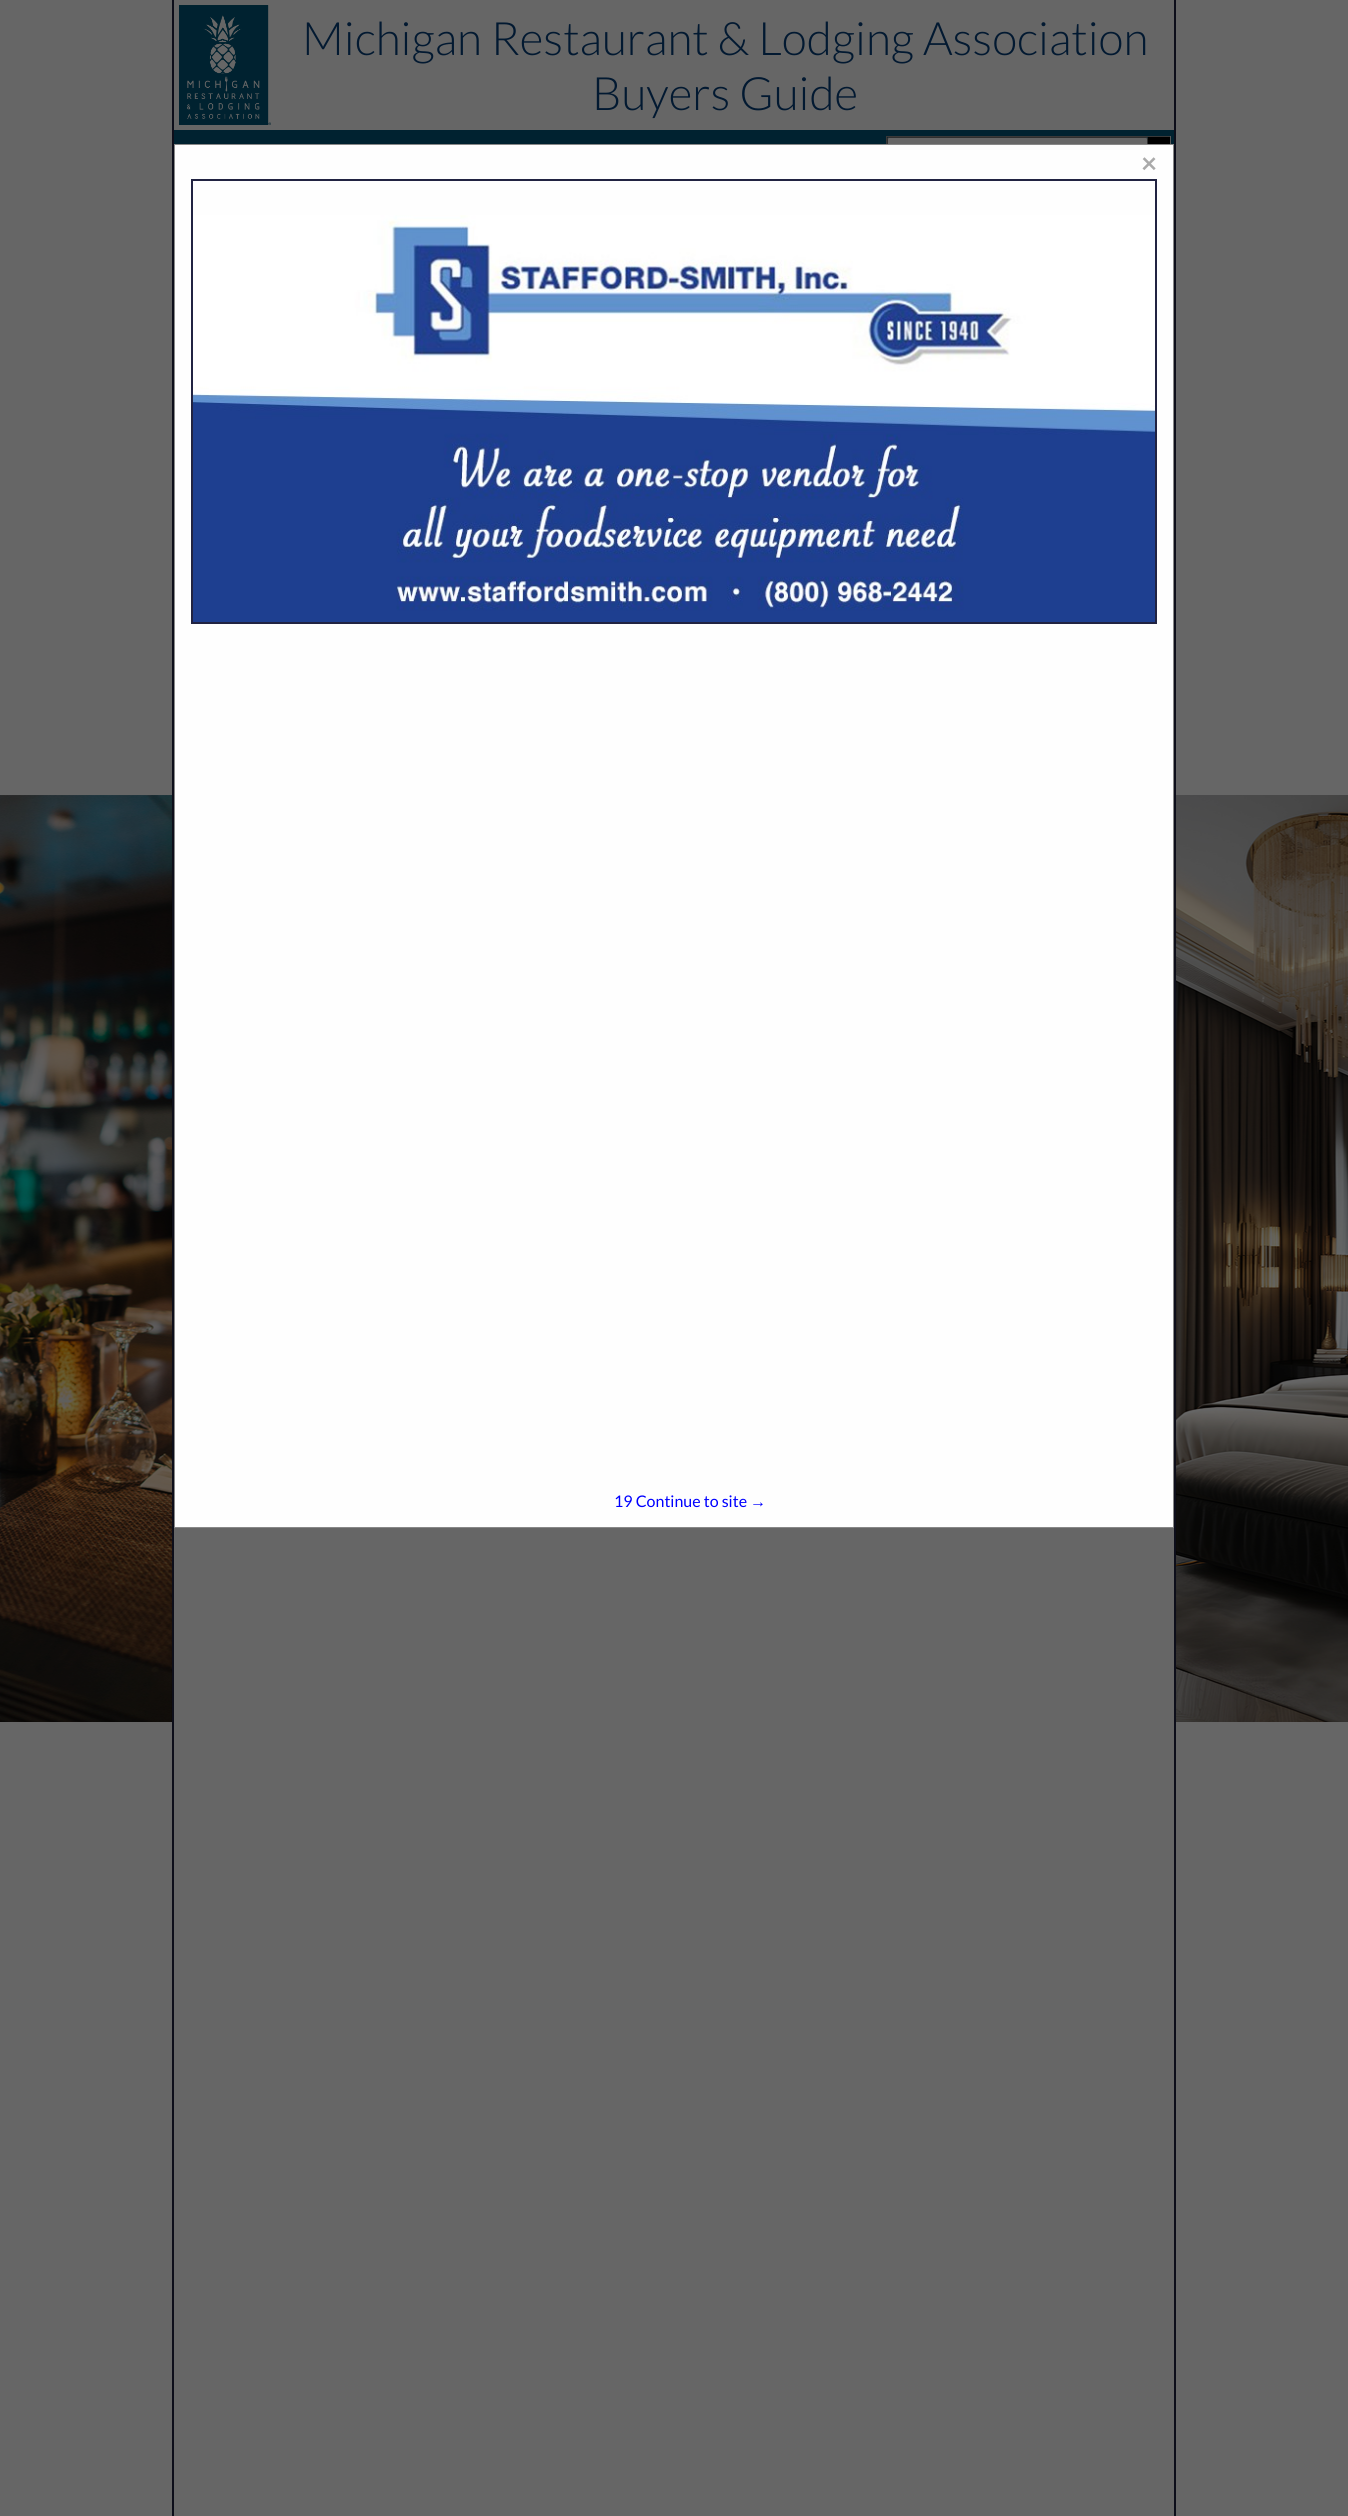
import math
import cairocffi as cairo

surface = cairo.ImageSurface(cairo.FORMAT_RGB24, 1348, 2516)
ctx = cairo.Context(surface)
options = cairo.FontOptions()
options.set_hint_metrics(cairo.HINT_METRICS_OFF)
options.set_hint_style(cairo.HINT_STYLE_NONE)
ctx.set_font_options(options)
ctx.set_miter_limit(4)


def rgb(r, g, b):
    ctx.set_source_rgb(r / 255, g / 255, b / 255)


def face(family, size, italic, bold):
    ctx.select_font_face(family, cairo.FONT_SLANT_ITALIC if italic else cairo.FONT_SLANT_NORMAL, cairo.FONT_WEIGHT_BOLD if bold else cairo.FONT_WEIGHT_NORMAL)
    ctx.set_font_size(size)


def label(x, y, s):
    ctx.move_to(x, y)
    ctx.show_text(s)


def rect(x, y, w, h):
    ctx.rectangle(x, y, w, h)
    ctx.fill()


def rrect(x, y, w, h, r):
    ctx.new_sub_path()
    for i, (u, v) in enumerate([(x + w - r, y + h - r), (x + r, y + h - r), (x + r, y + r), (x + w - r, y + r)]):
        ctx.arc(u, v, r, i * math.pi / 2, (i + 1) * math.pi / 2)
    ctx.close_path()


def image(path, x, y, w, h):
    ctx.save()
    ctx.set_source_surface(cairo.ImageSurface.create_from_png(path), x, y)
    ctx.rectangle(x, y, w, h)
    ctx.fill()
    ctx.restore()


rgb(102, 102, 102)
ctx.paint()
image('image0.png', 0, 795, 1348, 927)
rgb(13, 14, 26)
rect(1174, 0, 2, 2516)
rect(172, 0, 2, 2516)
image('image1.png', 179, 5, 92, 120)
face('Lato Light', 46, 0, 0)
rgb(2, 25, 49)
label(302, 55, 'Michigan Restaurant & Lodging Association')
label(592, 110, 'Buyers Guide')
rgb(0, 34, 48)
rect(174, 130, 1000, 14)
rgb(57, 57, 57)
rect(886, 136, 285, 1)
rgb(86, 86, 86)
rect(1170, 136, 1, 8)
rgb(57, 57, 57)
rect(886, 136, 1, 8)
rgb(102, 102, 102)
rrect(887.5, 137.5, 260, 22, 1.5)
ctx.fill_preserve()
rgb(47, 47, 47)
ctx.set_line_width(1)
ctx.stroke()
rgb(0, 0, 0)
rect(1148, 137, 22, 7)
rgb(254, 254, 254)
ctx.rectangle(174.5, 144.5, 999, 1383)
ctx.fill_preserve()
rgb(136, 136, 136)
ctx.stroke()
face('Lato', 28, 0, 1)
rgb(170, 170, 170)
label(1141, 173, '×')
ctx.rectangle(192, 180, 964, 443)
rgb(33, 35, 66)
ctx.set_line_width(2)
ctx.stroke()
image('image2.png', 193, 215, 962, 407)
face('Lato', 16, 0, 0)
rgb(0, 0, 255)
label(614, 1507, '19 Continue to site')
face('Liberation Sans', 16, 0, 0)
label(750, 1507, '→')
surface.write_to_png('render.png')
